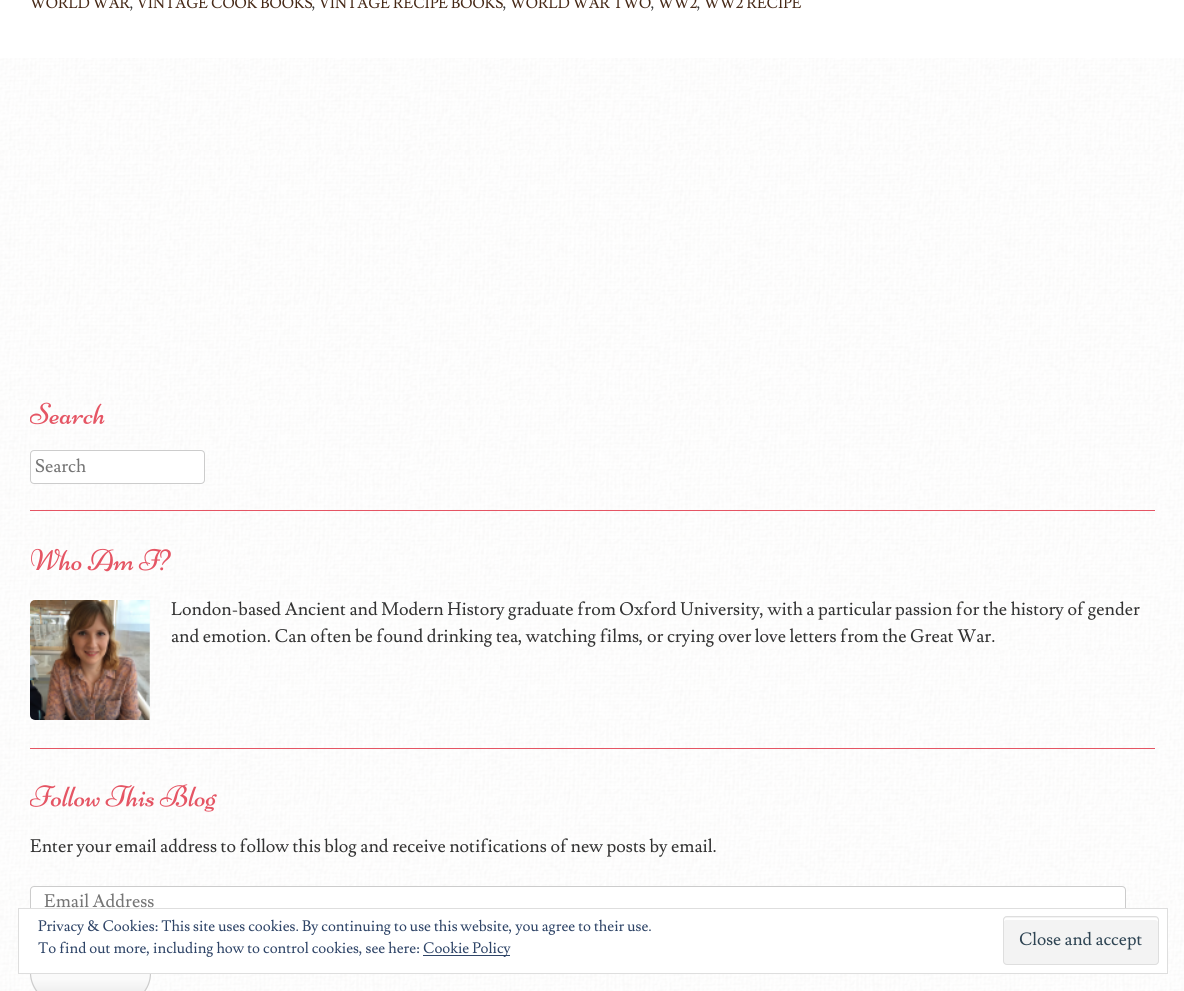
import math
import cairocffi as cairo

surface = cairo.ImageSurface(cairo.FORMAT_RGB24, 1184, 991)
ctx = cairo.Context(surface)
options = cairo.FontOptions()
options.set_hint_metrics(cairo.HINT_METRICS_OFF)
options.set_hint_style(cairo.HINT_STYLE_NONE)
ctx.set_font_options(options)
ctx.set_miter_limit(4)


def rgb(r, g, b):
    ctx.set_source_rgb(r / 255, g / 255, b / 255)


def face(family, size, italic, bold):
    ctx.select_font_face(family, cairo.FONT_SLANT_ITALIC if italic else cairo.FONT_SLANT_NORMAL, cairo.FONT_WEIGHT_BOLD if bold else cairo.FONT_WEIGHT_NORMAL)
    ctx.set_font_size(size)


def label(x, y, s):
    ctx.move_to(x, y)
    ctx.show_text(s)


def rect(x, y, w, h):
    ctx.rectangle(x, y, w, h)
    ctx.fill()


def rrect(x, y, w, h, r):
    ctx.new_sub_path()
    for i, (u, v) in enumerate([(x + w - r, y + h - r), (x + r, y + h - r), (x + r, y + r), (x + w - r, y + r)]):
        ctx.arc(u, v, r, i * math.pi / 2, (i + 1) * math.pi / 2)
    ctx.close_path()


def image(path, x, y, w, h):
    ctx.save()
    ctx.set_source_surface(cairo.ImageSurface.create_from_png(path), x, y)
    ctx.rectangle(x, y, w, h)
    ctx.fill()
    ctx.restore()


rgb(255, 255, 255)
ctx.paint()
image('image0.png', 0, 58, 1184, 933)
face('Lusitana', 15, 0, 0)
rgb(70, 41, 23)
label(30, 8, 'WORLD WAR')
rgb(51, 51, 51)
label(130, 8, ',')
rgb(70, 41, 23)
label(137, 8, 'VINTAGE COOK BOOKS')
rgb(51, 51, 51)
label(312, 8, ',')
rgb(70, 41, 23)
label(319, 8, 'VINTAGE RECIPE BOOKS')
rgb(51, 51, 51)
label(503, 8, ',')
rgb(70, 41, 23)
label(510, 8, 'WORLD WAR TWO')
rgb(51, 51, 51)
label(651, 8, ',')
rgb(70, 41, 23)
label(658, 8, 'WW2')
rgb(51, 51, 51)
label(697, 8, ',')
rgb(70, 41, 23)
label(704, 8, 'WW2 RECIPE')
rgb(229, 85, 100)
rect(30, 510, 1125, 1)
image('image1.png', 30, 402, 75, 23)
rgb(255, 255, 255)
rrect(30.5, 450.5, 174, 33, 3.5)
ctx.fill_preserve()
rgb(204, 204, 204)
ctx.set_line_width(1)
ctx.stroke()
face('Lusitana', 18, 0, 0)
rgb(117, 117, 117)
label(35, 472, 'Search')
rgb(229, 85, 100)
rect(30, 748, 1125, 1)
image('image2.png', 31, 548, 140, 24)
image('image3.png', 30, 600, 120, 120)
rgb(51, 51, 51)
label(171, 615, 'London-based Ancient and Modern History graduate from Oxford University, with a particular passion for the history of gender')
label(171, 642, 'and emotion. Can often be found drinking tea, watching films, or crying over love letters from the Great War.')
image('image4.png', 30, 784, 187, 28)
label(30, 852, 'Enter your email address to follow this blog and receive notifications of new posts by email.')
rgb(255, 255, 255)
rrect(30.5, 886.5, 1095, 28, 3.5)
ctx.fill_preserve()
rgb(204, 204, 204)
ctx.stroke()
rgb(117, 117, 117)
label(44, 907, 'Email Address')
ctx.save()
rrect(30, 943, 121, 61, 30.5)
ctx.clip()
gradient = cairo.LinearGradient(91, 944, 91, 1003)
gradient.add_color_stop_rgba(0.6, 0.98, 0.98, 0.98, 1)
gradient.add_color_stop_rgba(1, 0.902, 0.902, 0.902, 1)
ctx.set_source(gradient)
rect(30, 974, 121, 17)
ctx.restore()
ctx.new_path()
ctx.move_to(39.5, 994.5)
ctx.curve_to(34, 988.5, 30.5, 981, 30.5, 973)
ctx.curve_to(30.5, 965, 34, 957.5, 39.5, 952)
ctx.curve_to(45, 946.5, 52.5, 943, 60.5, 943)
ctx.line_to(120.5, 943)
ctx.curve_to(128.5, 943, 136, 946.5, 142, 952)
ctx.curve_to(147.5, 957.5, 150.5, 965, 150.5, 973)
ctx.curve_to(150.5, 981, 147.5, 988.5, 142, 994.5)
rgb(204, 204, 204)
ctx.set_line_width(1.2)
ctx.stroke()
rgb(255, 255, 255)
ctx.rectangle(18.5, 908.5, 1149, 65)
ctx.fill_preserve()
rgb(222, 222, 222)
ctx.set_line_width(1)
ctx.stroke()
face('Lusitana', 15, 0, 0)
rgb(46, 68, 103)
label(38, 931, 'Privacy & Cookies: This site uses cookies. By continuing to use this website, you agree to their use.')
label(38, 953, 'To find out more, including how to control cookies, see here:')
rect(423, 955, 87, 1)
label(423, 953, 'Cookie Policy')
rgb(243, 243, 243)
rrect(1003, 916, 156, 49, 4)
ctx.fill()
rgb(255, 255, 255)
ctx.new_path()
ctx.move_to(1006, 920)
ctx.line_to(1155, 920)
ctx.curve_to(1156, 920, 1158, 921, 1158, 922)
ctx.curve_to(1158, 920, 1158, 918, 1156, 918)
ctx.line_to(1006, 918)
ctx.curve_to(1004, 918, 1004, 920, 1004, 922)
ctx.curve_to(1004, 921, 1005, 920, 1006, 920)
ctx.close_path()
ctx.fill()
rrect(1003.5, 916.5, 155, 48, 3.5)
rgb(222, 222, 222)
ctx.stroke()
face('Lusitana', 17.5, 0, 0)
rgb(46, 68, 83)
label(1019, 945, 'Close and accept')
surface.write_to_png('render.png')
